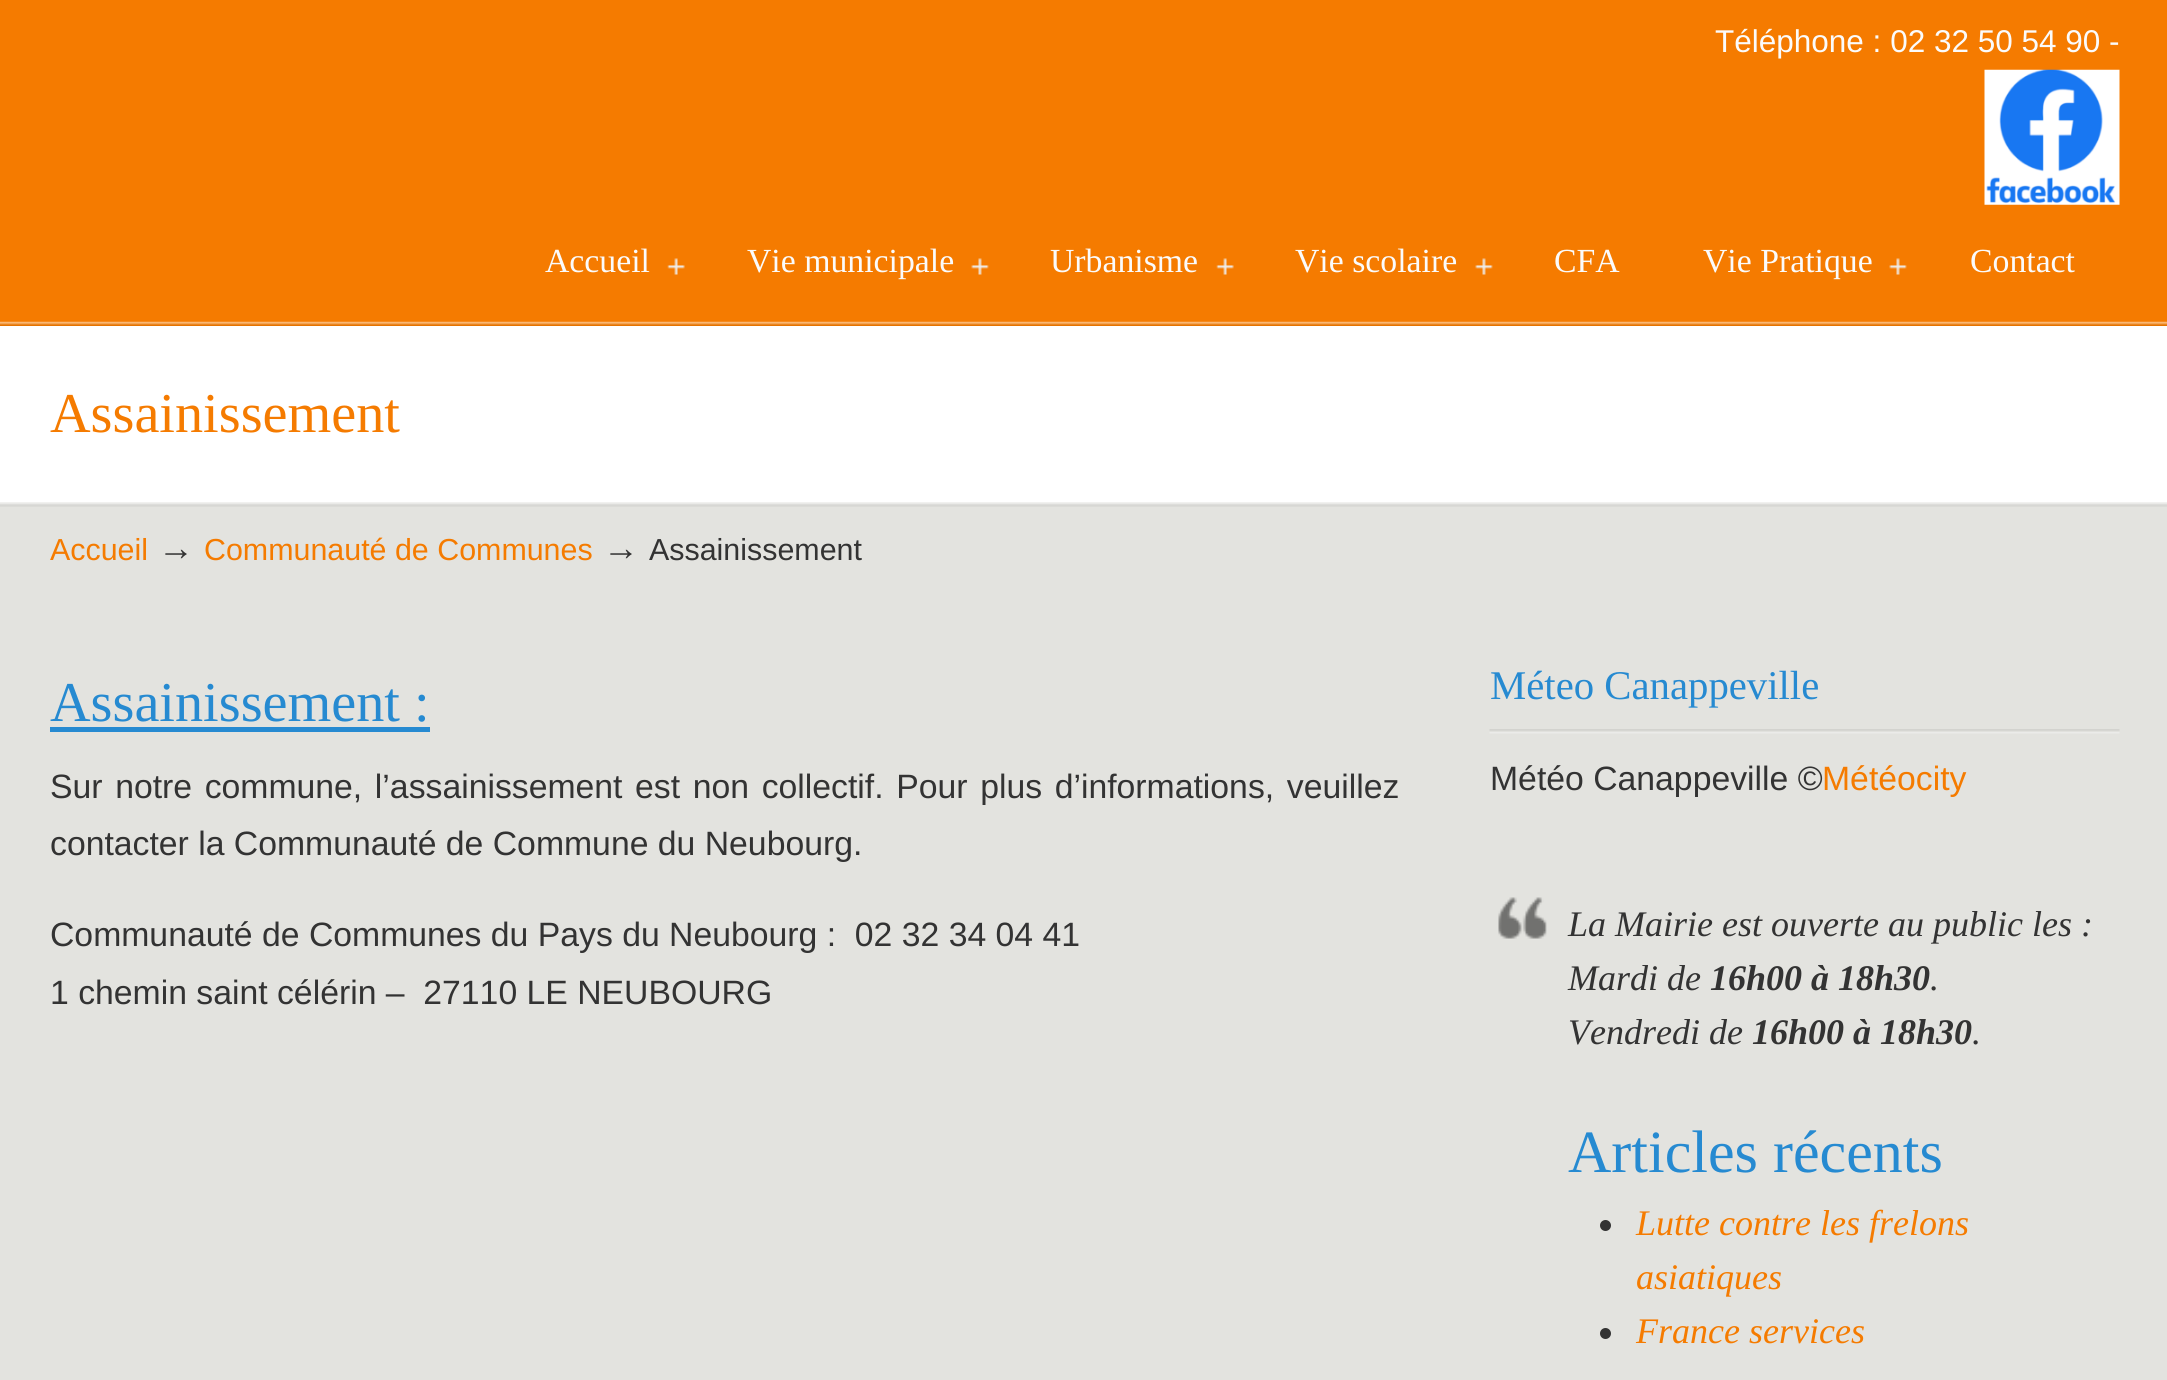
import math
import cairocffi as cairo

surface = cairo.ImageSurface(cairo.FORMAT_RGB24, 2167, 1380)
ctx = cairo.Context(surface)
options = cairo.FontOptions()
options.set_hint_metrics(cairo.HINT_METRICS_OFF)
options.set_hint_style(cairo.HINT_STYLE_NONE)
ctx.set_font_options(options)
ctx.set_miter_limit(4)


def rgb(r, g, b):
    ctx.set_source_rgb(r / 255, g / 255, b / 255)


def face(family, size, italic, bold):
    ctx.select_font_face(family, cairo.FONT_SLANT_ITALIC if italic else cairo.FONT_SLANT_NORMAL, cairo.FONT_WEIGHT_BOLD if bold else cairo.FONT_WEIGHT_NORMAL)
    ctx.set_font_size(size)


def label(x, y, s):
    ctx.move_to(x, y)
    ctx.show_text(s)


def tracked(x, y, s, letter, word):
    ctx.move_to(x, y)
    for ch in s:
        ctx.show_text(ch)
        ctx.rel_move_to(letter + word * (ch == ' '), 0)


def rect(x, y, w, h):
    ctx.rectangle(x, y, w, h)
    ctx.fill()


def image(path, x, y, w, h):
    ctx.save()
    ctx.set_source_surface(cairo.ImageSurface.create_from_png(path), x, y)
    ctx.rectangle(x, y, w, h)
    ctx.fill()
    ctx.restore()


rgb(255, 255, 255)
ctx.paint()
rgb(245, 123, 0)
rect(0, 0, 2167, 326)
face('Liberation Sans', 31.5, 0, 0)
rgb(251, 251, 251)
label(1715, 52, 'Téléphone : 02 32 50 54 90 -')
image('image0.png', 1984, 69, 136, 136)
image('image1.png', 0, 321, 2167, 5)
face('Liberation Serif', 33.75, 0, 0)
label(545, 272, 'Accueil')
image('image2.png', 667, 258, 18, 17)
label(747, 272, 'Vie municipale')
image('image3.png', 971, 258, 18, 17)
label(1050, 272, 'Urbanisme')
image('image2.png', 1216, 258, 18, 17)
label(1295, 272, 'Vie scolaire')
image('image3.png', 1475, 258, 18, 17)
label(1554, 272, 'CFA')
label(1703, 272, 'Vie Pratique')
image('image3.png', 1889, 258, 18, 17)
label(1970, 272, 'Contact')
face('Liberation Serif', 56.25, 0, 0)
rgb(245, 123, 0)
label(50, 432, 'Assainissement')
rgb(227, 227, 223)
rect(0, 502, 2167, 878)
image('image4.png', 0, 502, 2167, 5)
face('Liberation Sans', 30.4, 0, 0)
rgb(245, 123, 0)
label(50, 560, 'Accueil')
face('Liberation Sans', 36, 0, 0)
rgb(51, 51, 51)
label(158, 560, '→')
face('Liberation Sans', 30.4, 0, 0)
rgb(245, 123, 0)
label(204, 560, 'Communauté de Communes')
face('Liberation Sans', 36, 0, 0)
rgb(51, 51, 51)
label(603, 560, '→')
face('Liberation Sans', 30.4, 0, 0)
label(649, 560, 'Assainissement')
face('Liberation Serif', 56.25, 0, 0)
rgb(38, 138, 209)
label(50, 721, 'Assainissement :')
rect(50, 727, 380, 5)
face('Liberation Sans', 33.75, 0, 0)
rgb(51, 51, 51)
tracked(50, 798, 'Sur notre commune, l’assainissement est non collectif. Pour plus d’informations, veuillez', 0, 3.25)
label(50, 855, 'contacter la Communauté de Commune du Neubourg.')
label(50, 946, 'Communauté de Communes du Pays du Neubourg :  02 32 34 04 41')
label(50, 1004, '1 chemin saint célérin –  27110 LE NEUBOURG')
image('image5.png', 1489, 729, 631, 5)
face('Liberation Serif', 40.75, 0, 0)
rgb(38, 138, 209)
label(1490, 699, 'Méteo Canappeville')
face('Liberation Sans', 33.75, 0, 0)
rgb(51, 51, 51)
label(1490, 790, 'Météo Canappeville ©')
rgb(245, 123, 0)
label(1822, 790, 'Météocity')
image('image6.png', 1498, 897, 49, 42)
face('Liberation Serif', 36, 1, 0)
rgb(51, 51, 51)
label(1568, 936, 'La Mairie est ouverte au public les :')
label(1568, 990, 'Mardi de')
face('Liberation Serif', 36, 1, 1)
label(1710, 990, '16h00 à 18h30')
face('Liberation Serif', 36, 1, 0)
label(1930, 990, '.')
label(1568, 1044, 'Vendredi de')
face('Liberation Serif', 36, 1, 1)
label(1752, 1044, '16h00 à 18h30')
face('Liberation Serif', 36, 1, 0)
label(1972, 1044, '.')
face('Liberation Serif', 60, 0, 0)
rgb(38, 138, 209)
label(1568, 1172, 'Articles récents')
rgb(51, 51, 51)
ctx.new_path()
ctx.arc(1605.5, 1225.5, 5.5, 0, 2 * math.pi)
ctx.fill()
face('Liberation Serif', 36, 1, 0)
rgb(245, 123, 0)
label(1636, 1235, 'Lutte contre les frelons')
label(1636, 1289, 'asiatiques')
rgb(51, 51, 51)
ctx.new_path()
ctx.arc(1605.5, 1333.5, 5.5, 0, 2 * math.pi)
ctx.fill()
rgb(245, 123, 0)
label(1636, 1343, 'France services')
surface.write_to_png('render.png')
